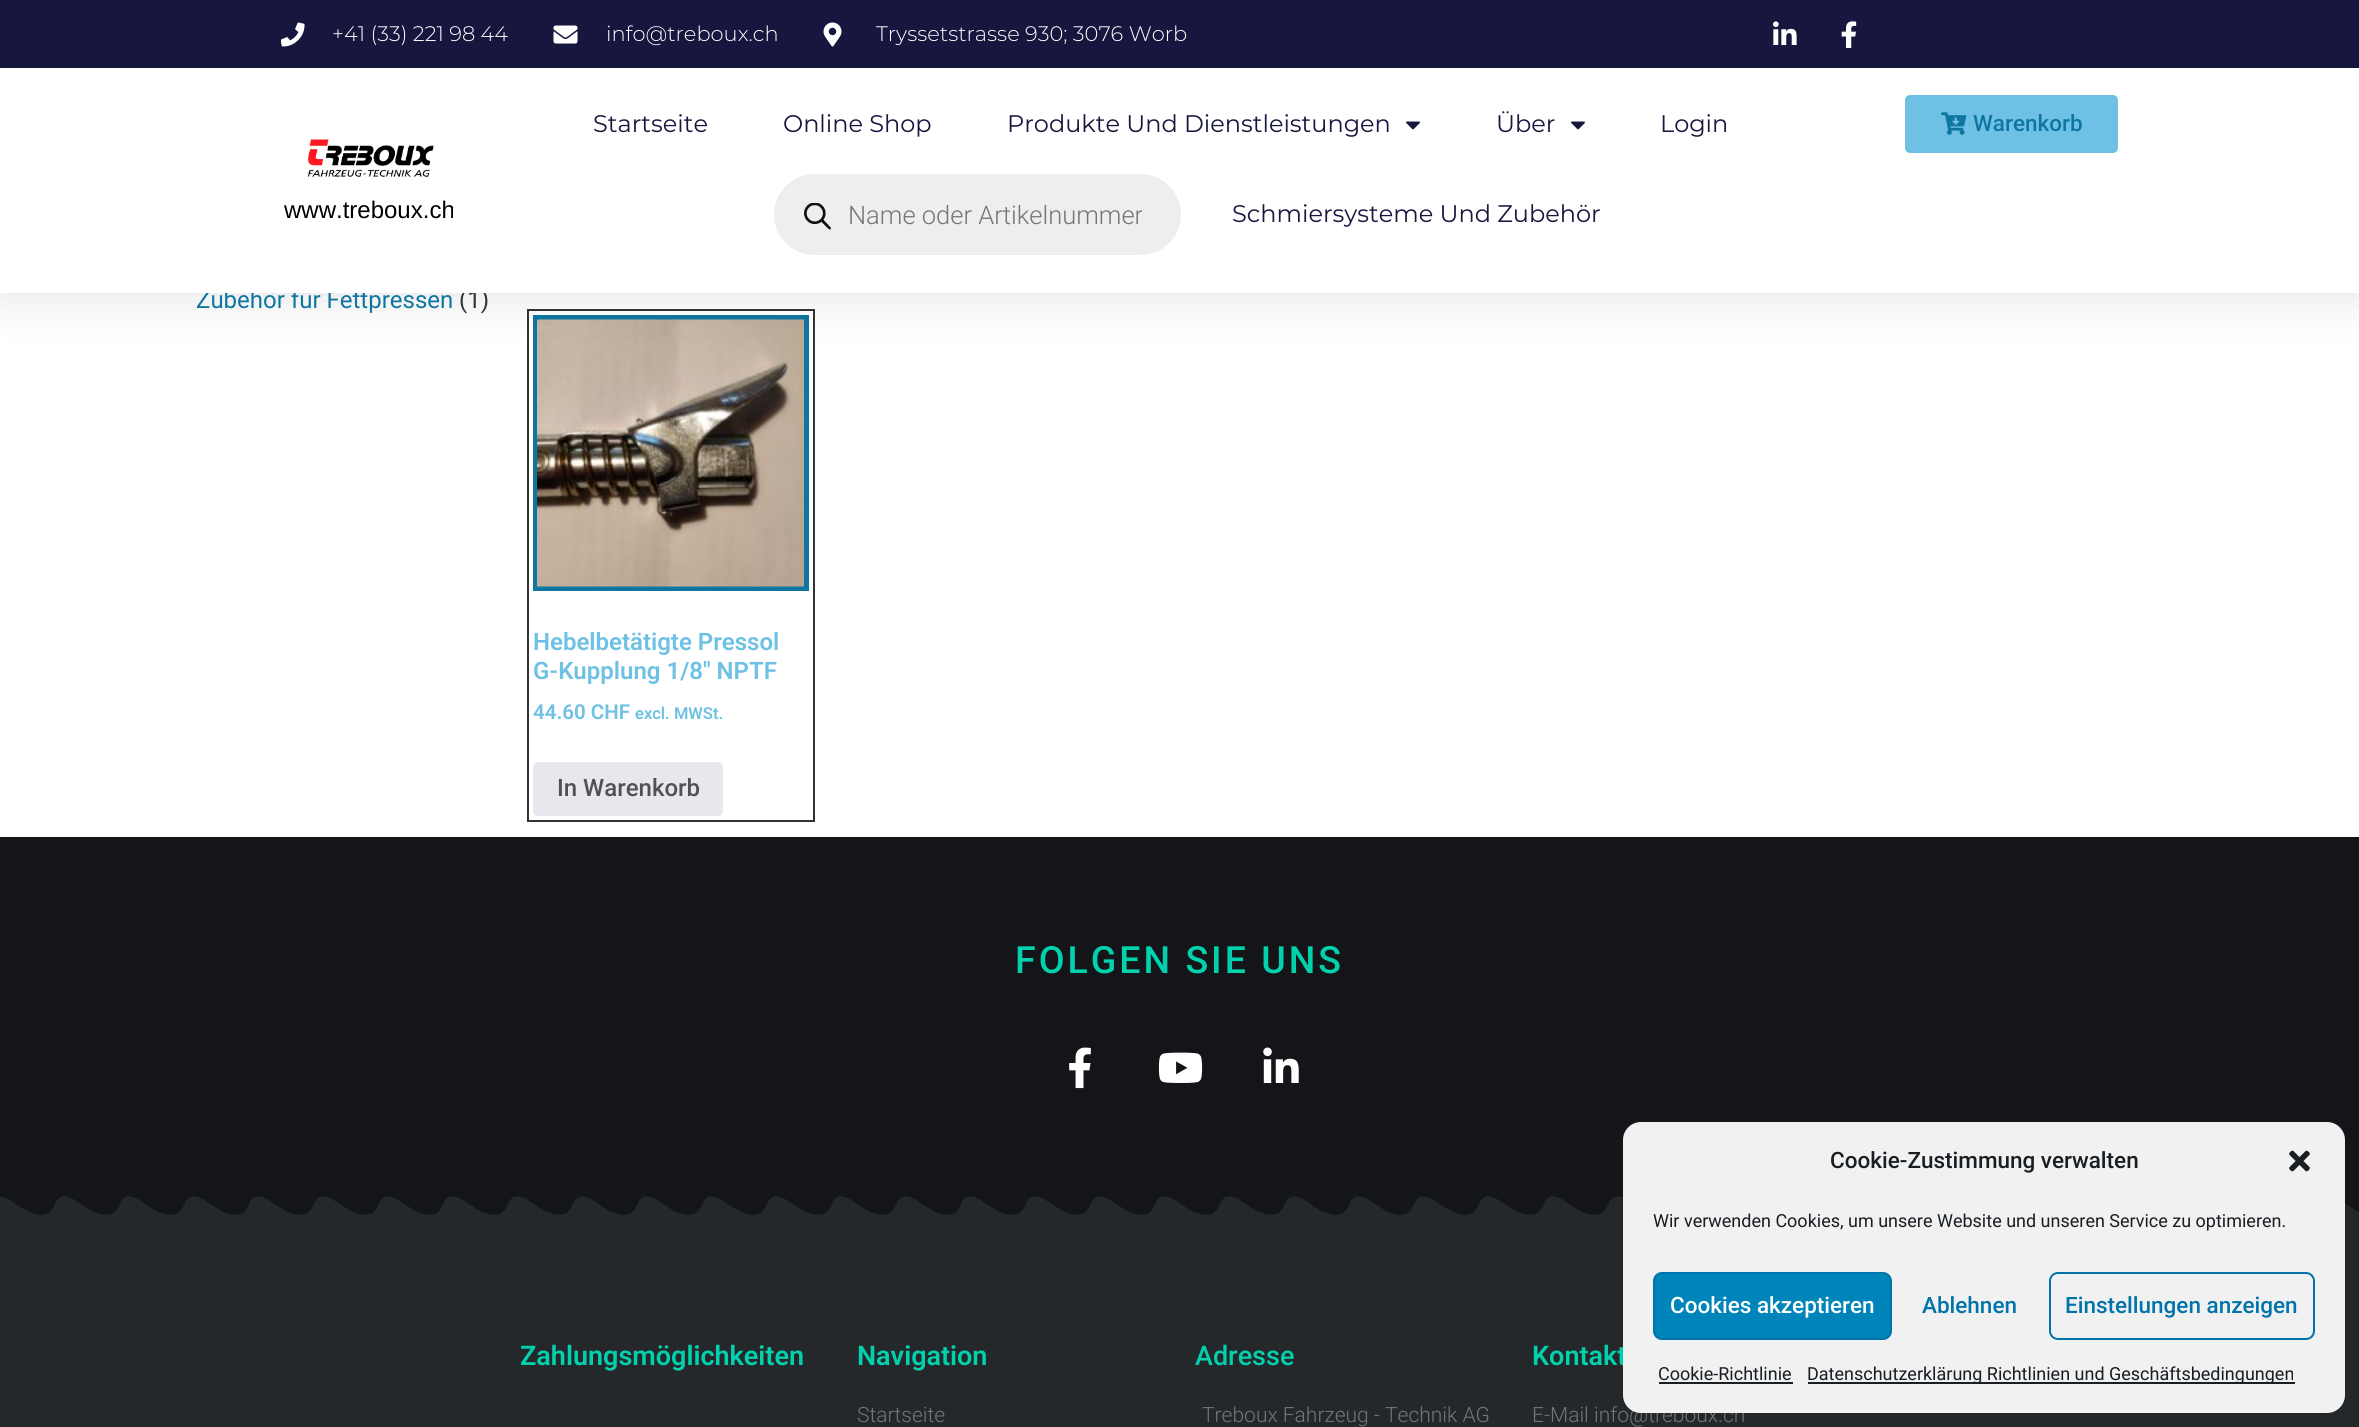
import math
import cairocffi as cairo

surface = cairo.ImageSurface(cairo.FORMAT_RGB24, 2359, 1427)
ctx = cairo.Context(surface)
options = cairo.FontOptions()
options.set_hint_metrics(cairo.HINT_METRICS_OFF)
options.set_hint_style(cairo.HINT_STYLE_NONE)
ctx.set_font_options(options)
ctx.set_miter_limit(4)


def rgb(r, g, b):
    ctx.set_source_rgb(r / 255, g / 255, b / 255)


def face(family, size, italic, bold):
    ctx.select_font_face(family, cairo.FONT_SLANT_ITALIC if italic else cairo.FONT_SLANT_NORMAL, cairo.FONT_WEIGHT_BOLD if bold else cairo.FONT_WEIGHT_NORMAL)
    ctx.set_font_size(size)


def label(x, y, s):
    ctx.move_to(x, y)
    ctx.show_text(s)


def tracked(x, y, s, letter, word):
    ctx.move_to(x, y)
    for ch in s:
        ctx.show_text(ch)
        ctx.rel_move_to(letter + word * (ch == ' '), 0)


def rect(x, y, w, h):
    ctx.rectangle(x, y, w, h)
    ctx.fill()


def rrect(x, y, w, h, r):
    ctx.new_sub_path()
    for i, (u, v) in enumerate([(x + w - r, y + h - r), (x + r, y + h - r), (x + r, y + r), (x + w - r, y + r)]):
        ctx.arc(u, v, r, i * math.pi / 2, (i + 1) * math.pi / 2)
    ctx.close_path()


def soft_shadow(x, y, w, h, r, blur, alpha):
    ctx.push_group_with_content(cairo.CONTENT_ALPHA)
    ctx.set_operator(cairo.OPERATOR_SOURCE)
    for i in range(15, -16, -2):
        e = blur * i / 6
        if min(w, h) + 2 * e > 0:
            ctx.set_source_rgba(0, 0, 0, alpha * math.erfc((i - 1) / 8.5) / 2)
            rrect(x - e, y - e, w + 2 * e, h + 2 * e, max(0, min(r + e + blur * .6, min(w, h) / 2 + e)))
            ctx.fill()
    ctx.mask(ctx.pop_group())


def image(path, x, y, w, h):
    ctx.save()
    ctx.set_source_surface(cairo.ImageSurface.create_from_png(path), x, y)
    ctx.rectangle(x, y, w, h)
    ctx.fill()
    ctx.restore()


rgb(255, 255, 255)
ctx.paint()
ctx.rectangle(528, 310, 286, 511)
rgb(51, 51, 51)
ctx.stroke()
ctx.rectangle(535.5, 317.5, 271, 271)
rgb(14, 118, 161)
ctx.set_line_width(5)
ctx.stroke()
image('image9.png', 537, 319, 267, 268)
rgb(0, 0, 0)
soft_shadow(0, 8, 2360, 292, 0, 22.5, 0.1)
rgb(22, 22, 63)
rect(0, 0, 2359, 68)
image('image0.png', 281, 22, 24, 25)
face('Montserrat Light', 21, 0, 0)
rgb(255, 255, 255)
label(332, 41, '+41 (33) 221 98 44')
image('image1.png', 553, 25, 25, 19)
label(606, 41, 'info@treboux.ch')
image('image2.png', 823, 22, 19, 25)
label(876, 41, 'Tryssetstrasse 930; 3076 Worb')
image('image3.png', 1773, 21, 24, 24)
image('image4.png', 1841, 21, 16, 27)
face('Roboto', 24, 0, 0)
rgb(14, 118, 161)
label(196, 308, 'Zubehör für Fettpressen')
rgb(51, 51, 51)
label(459, 308, '(1)')
rgb(255, 255, 255)
rect(0, 68, 2359, 225)
face('Montserrat', 24, 0, 0)
rgb(22, 22, 63)
label(593, 132, 'Startseite')
label(783, 132, 'Online Shop')
label(1007, 132, 'Produkte Und Dienstleistungen')
image('image5.png', 1406, 121, 14, 9)
label(1496, 132, 'Über')
image('image5.png', 1571, 121, 14, 9)
label(1660, 132, 'Login')
rgb(238, 238, 238)
rrect(774, 174, 407, 81, 40.5)
ctx.fill()
image('image6.png', 804, 203, 27, 27)
ctx.save()
ctx.rectangle(849, 200, 293, 30)
ctx.clip()
face('Roboto Light', 25.5, 0, 0)
rgb(115, 117, 119)
label(848, 224, 'Name oder Artikelnummer')
ctx.restore()
rgb(22, 22, 63)
label(1232, 222, 'Schmiersysteme Und Zubehör')
rgb(110, 193, 228)
rrect(1905, 95, 213, 58, 5)
ctx.fill()
image('image7.png', 1941, 112, 26, 23)
face('Roboto Medium', 22.5, 0, 0)
rgb(14, 118, 161)
label(1973, 131, 'Warenkorb')
image('image8.png', 308, 139, 126, 38)
face('Liberation Sans', 24, 0, 0)
rgb(0, 0, 0)
label(284, 218, 'www.treboux.ch')
face('Roboto SemiBold', 24, 0, 0)
rgb(110, 193, 228)
label(533, 650, 'Hebelbetätigte Pressol')
label(533, 679, 'G-Kupplung 1/8″ NPTF')
face('Roboto SemiBold', 20.5, 0, 0)
label(533, 719, '44.60 CHF')
face('Roboto SemiBold', 16.5, 0, 0)
label(635, 719, 'excl. MWSt.')
rgb(233, 230, 237)
rrect(533, 762, 190, 54, 5)
ctx.fill()
face('Roboto Medium', 24, 0, 0)
rgb(81, 81, 81)
label(557, 796, 'In Warenkorb')
rgb(20, 21, 25)
rect(0, 837, 2359, 356)
face('Roboto Medium', 37.5, 0, 0)
rgb(2, 209, 174)
tracked(1015, 973, 'FOLGEN SIE UNS', 3, 0)
image('image10.png', 1069, 1047, 22, 42)
image('image11.png', 1158, 1052, 45, 31)
image('image12.png', 1263, 1047, 36, 36)
rgb(37, 40, 43)
rect(0, 1196, 2359, 231)
image('image13.png', 0, 1193, 2359, 22)
face('Roboto SemiBold', 27, 0, 0)
rgb(2, 209, 174)
label(520, 1365, 'Zahlungsmöglichkeiten')
label(857, 1365, 'Navigation')
face('Roboto Light', 21, 0, 0)
rgb(115, 117, 119)
label(857, 1422, 'Startseite')
face('Roboto Medium', 27, 0, 0)
rgb(2, 209, 174)
label(1195, 1365, 'Adresse')
face('Roboto Light', 21, 0, 0)
rgb(115, 117, 119)
label(1202, 1422, 'Treboux Fahrzeug - Technik AG')
face('Roboto SemiBold', 27, 0, 0)
rgb(2, 209, 174)
label(1532, 1365, 'Kontakt')
face('Roboto Light', 21, 0, 0)
rgb(115, 117, 119)
label(1532, 1422, 'E-Mail info@treboux.ch')
rgb(241, 241, 241)
rrect(1623, 1122, 722, 291, 18)
ctx.fill()
face('Roboto Medium', 22.5, 0, 0)
rgb(25, 30, 35)
label(1830, 1168, 'Cookie-Zustimmung verwalten')
image('image14.png', 2289, 1150, 21, 22)
face('Roboto', 18, 0, 0)
label(1653, 1227, 'Wir verwenden Cookies, um unsere Website und unseren Service zu optimieren.')
rgb(0, 133, 186)
rrect(1654, 1273, 237, 66, 8)
ctx.fill_preserve()
rgb(0, 115, 170)
ctx.set_line_width(2)
ctx.stroke()
face('Roboto Medium', 22.5, 0, 0)
rgb(255, 255, 255)
label(1670, 1313, 'Cookies akzeptieren')
rgb(0, 115, 170)
label(1922, 1313, 'Ablehnen')
rrect(2050, 1273, 264, 66, 8)
ctx.stroke()
label(2065, 1313, 'Einstellungen anzeigen')
face('Roboto', 18, 0, 0)
rgb(25, 30, 35)
label(1658, 1380, 'Cookie-Richtlinie')
rect(1659, 1382, 134, 2)
rect(1808, 1382, 487, 2)
label(1807, 1380, 'Datenschutzerklärung Richtlinien und Geschäftsbedingungen')
surface.write_to_png('render.png')
